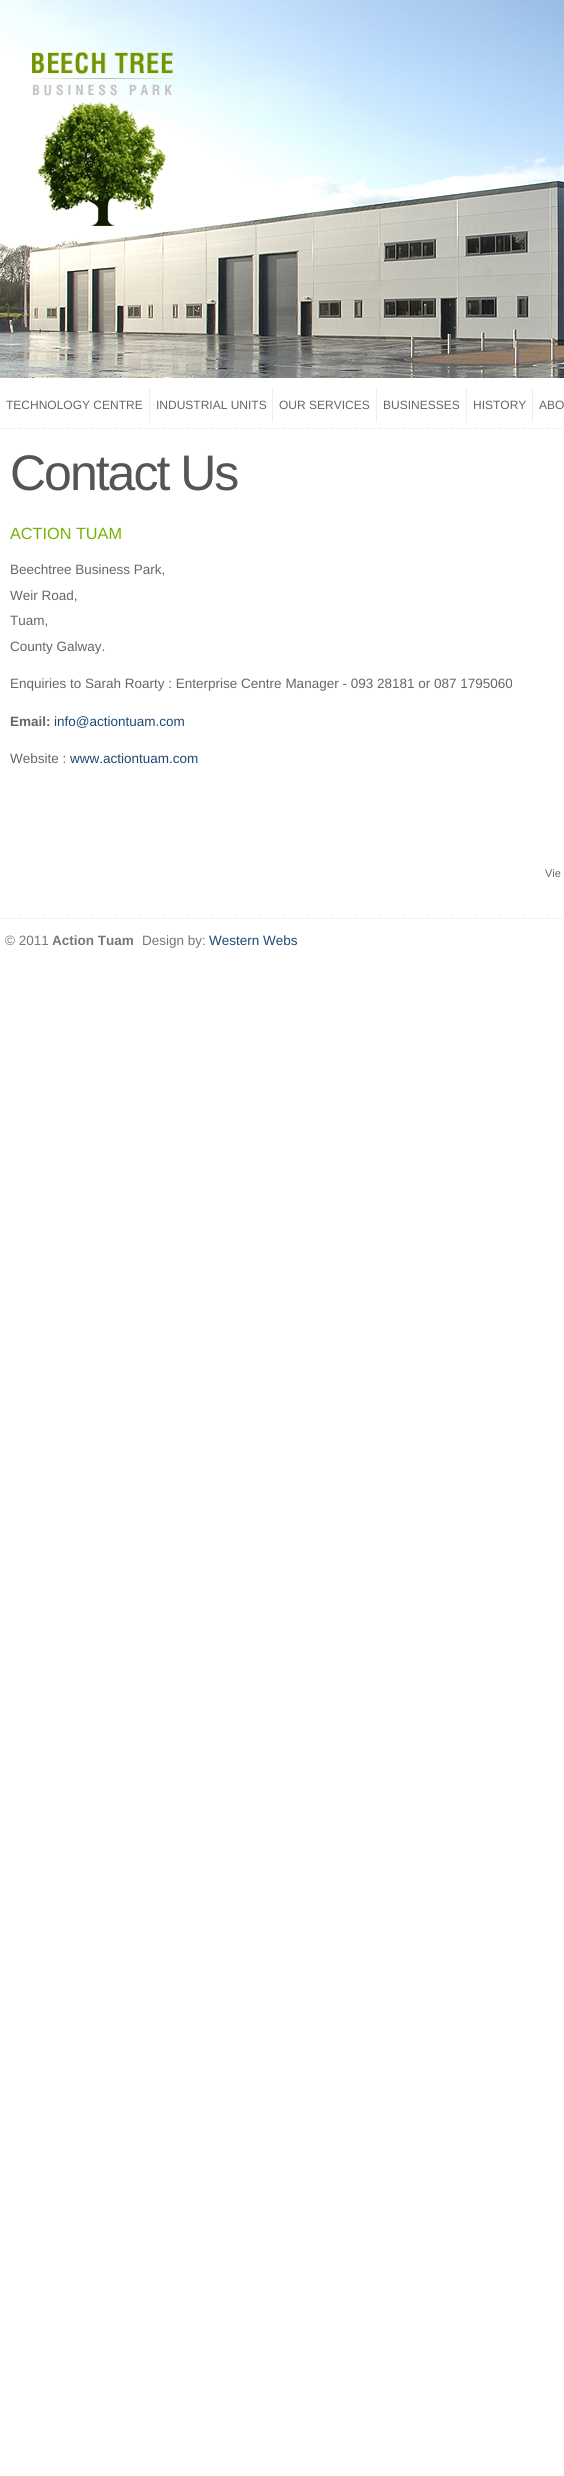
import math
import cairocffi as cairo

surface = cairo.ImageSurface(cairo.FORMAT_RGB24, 564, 2476)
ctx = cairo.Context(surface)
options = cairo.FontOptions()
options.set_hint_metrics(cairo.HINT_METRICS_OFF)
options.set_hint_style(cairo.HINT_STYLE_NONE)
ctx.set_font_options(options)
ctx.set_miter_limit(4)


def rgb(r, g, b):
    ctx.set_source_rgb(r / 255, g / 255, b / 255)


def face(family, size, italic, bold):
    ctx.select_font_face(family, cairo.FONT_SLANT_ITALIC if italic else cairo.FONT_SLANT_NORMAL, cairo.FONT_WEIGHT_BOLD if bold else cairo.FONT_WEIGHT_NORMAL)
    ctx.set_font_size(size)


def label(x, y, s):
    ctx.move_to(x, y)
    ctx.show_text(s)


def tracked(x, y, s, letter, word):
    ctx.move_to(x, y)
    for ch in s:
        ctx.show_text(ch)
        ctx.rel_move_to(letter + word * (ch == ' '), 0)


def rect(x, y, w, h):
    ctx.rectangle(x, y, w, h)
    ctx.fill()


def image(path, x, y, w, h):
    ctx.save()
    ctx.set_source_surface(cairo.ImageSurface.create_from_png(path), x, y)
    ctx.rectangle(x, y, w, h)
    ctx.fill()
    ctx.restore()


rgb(255, 255, 255)
ctx.paint()
image('image0.png', 0, 0, 564, 378)
rgb(238, 238, 238)
rect(149, 388, 1, 34)
face('Liberation Sans', 12, 0, 0)
rgb(102, 102, 102)
label(6, 409, 'TECHNOLOGY CENTRE')
rgb(238, 238, 238)
rect(272, 388, 1, 34)
rgb(102, 102, 102)
label(156, 409, 'INDUSTRIAL UNITS')
rgb(238, 238, 238)
rect(376, 388, 1, 34)
rgb(102, 102, 102)
label(279, 409, 'OUR SERVICES')
rgb(238, 238, 238)
rect(466, 388, 1, 34)
rgb(102, 102, 102)
label(383, 409, 'BUSINESSES')
rgb(238, 238, 238)
rect(532, 388, 1, 34)
rgb(102, 102, 102)
label(473, 409, 'HISTORY')
label(539, 409, 'ABO')
image('image1.png', 0, 428, 562, 1)
face('Liberation Sans', 50, 0, 0)
rgb(85, 85, 85)
tracked(10, 490, 'Contact Us', -2, 0)
face('Liberation Sans', 16.25, 0, 0)
rgb(119, 178, 2)
label(10, 539, 'ACTION TUAM')
face('Liberation Sans', 13.5, 0, 0)
rgb(102, 102, 102)
label(10, 574, 'Beechtree Business Park,')
label(10, 600, 'Weir Road,')
label(10, 625, 'Tuam,')
label(10, 651, 'County Galway.')
label(10, 688, 'Enquiries to Sarah Roarty : Enterprise Centre Manager - 093 28181 or 087 1795060')
face('Liberation Sans', 13.5, 0, 1)
label(10, 726, 'Email:')
face('Liberation Sans', 13.5, 0, 0)
rgb(29, 71, 113)
label(54, 726, 'info@actiontuam.com')
rgb(102, 102, 102)
label(10, 763, 'Website :')
rgb(29, 71, 113)
label(70, 763, 'www.actiontuam.com')
face('Liberation Sans', 11, 0, 0)
rgb(102, 102, 102)
label(545, 877, 'Vie')
image('image1.png', 0, 918, 562, 1)
face('Liberation Sans', 13.5, 0, 0)
rgb(119, 119, 119)
label(5, 945, '© 2011')
face('Liberation Sans', 13.5, 0, 1)
label(52, 945, 'Action Tuam')
face('Liberation Sans', 13.5, 0, 0)
label(142, 945, 'Design by:')
rgb(29, 71, 113)
label(209, 945, 'Western Webs')
surface.write_to_png('render.png')
